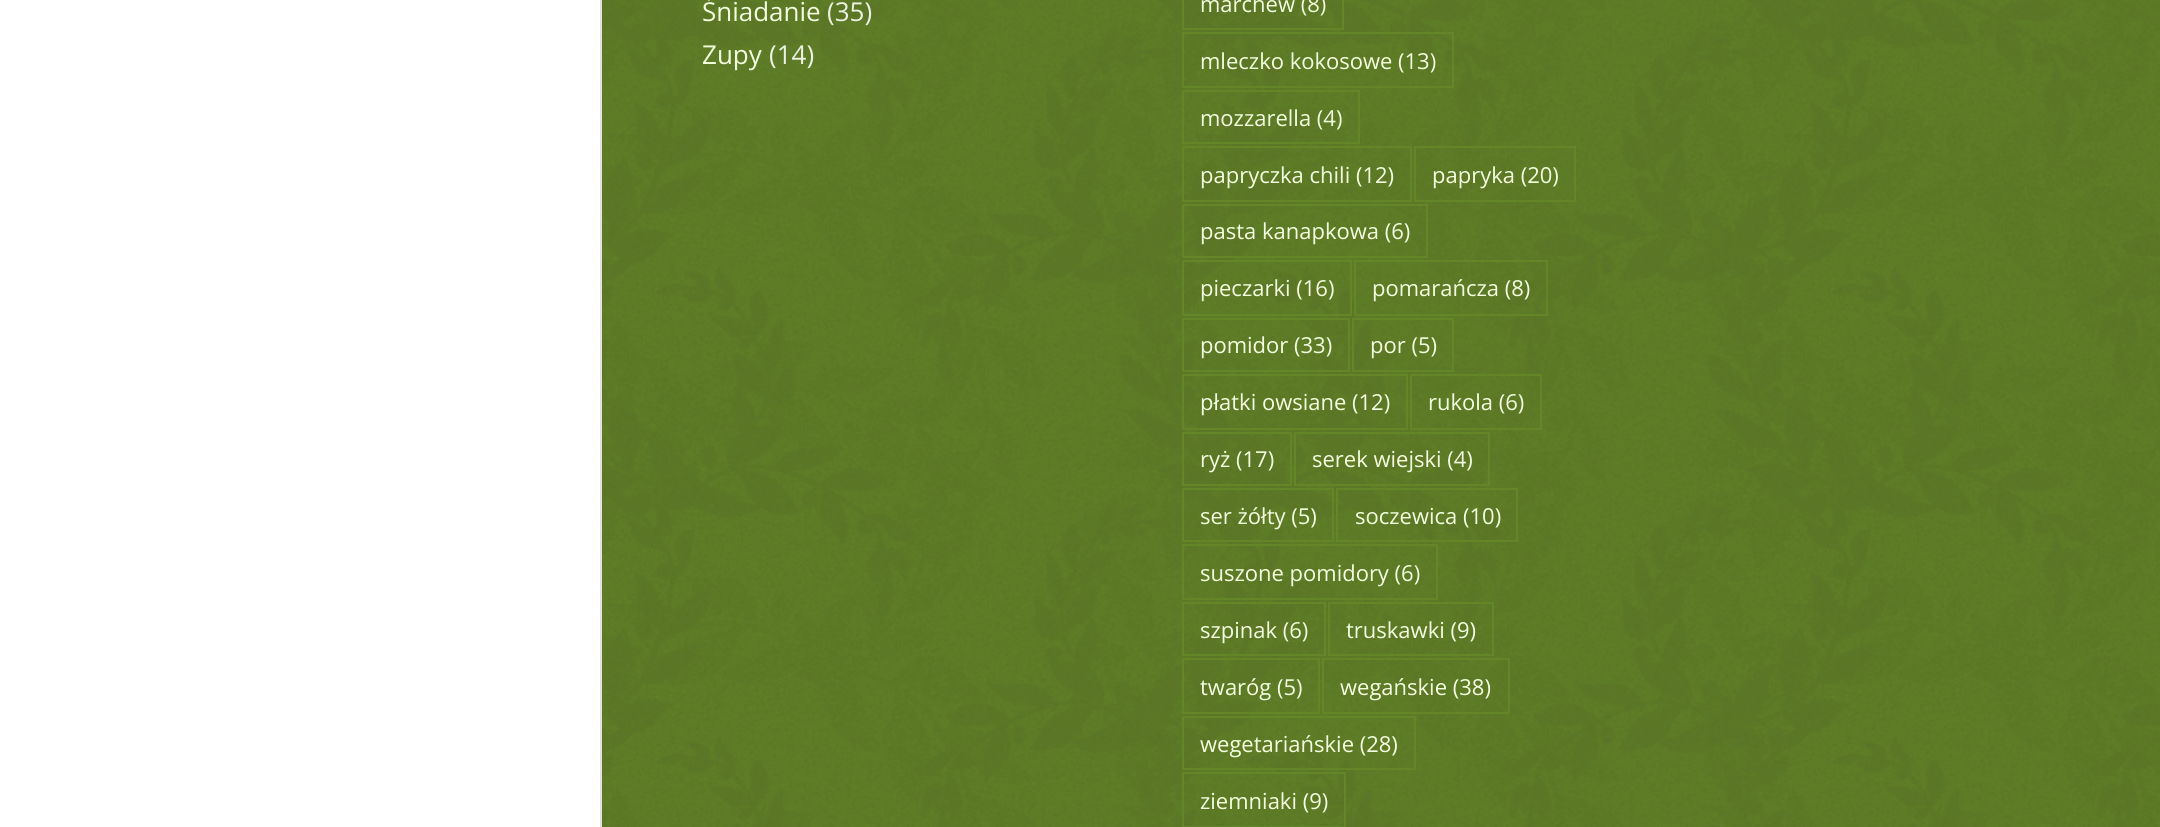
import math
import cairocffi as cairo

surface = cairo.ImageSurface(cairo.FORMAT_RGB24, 2160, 827)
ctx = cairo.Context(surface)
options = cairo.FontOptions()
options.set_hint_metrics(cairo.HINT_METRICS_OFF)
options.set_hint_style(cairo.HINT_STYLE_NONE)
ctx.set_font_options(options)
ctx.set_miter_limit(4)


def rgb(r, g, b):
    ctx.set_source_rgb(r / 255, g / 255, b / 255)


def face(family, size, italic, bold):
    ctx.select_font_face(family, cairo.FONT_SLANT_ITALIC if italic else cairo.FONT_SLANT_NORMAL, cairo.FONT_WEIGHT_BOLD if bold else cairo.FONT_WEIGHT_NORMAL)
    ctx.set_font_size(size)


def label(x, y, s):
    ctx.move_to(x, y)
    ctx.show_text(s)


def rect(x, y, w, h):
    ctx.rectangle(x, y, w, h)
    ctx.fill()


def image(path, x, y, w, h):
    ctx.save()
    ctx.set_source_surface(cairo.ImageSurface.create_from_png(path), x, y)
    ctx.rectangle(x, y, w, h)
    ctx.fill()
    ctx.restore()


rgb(255, 255, 255)
ctx.paint()
rgb(225, 225, 225)
rect(600, 0, 2, 827)
rgb(101, 133, 41)
rect(602, 0, 1558, 827)
image('image0.png', 602, 0, 1558, 827)
face('Open Sans', 26, 0, 0)
rgb(243, 255, 222)
label(702, 21, 'Śniadanie')
rgb(236, 242, 225)
label(827, 21, '(35)')
rgb(243, 255, 222)
label(702, 64, 'Zupy')
rgb(236, 242, 225)
label(769, 64, '(14)')
ctx.rectangle(1183, -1, 160, 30)
rgb(101, 133, 41)
ctx.stroke()
face('Open Sans', 22, 0, 0)
rgb(243, 255, 222)
label(1200, 12, 'marchew (8)')
ctx.rectangle(1183, 33, 270, 54)
rgb(101, 133, 41)
ctx.stroke()
rgb(243, 255, 222)
label(1200, 69, 'mleczko kokosowe (13)')
ctx.rectangle(1183, 91, 176, 52)
rgb(101, 133, 41)
ctx.stroke()
rgb(243, 255, 222)
label(1200, 126, 'mozzarella (4)')
ctx.rectangle(1183, 147, 228, 54)
rgb(101, 133, 41)
ctx.stroke()
rgb(243, 255, 222)
label(1200, 183, 'papryczka chili (12)')
ctx.rectangle(1415, 147, 160, 54)
rgb(101, 133, 41)
ctx.stroke()
rgb(243, 255, 222)
label(1432, 183, 'papryka (20)')
ctx.rectangle(1183, 205, 244, 52)
rgb(101, 133, 41)
ctx.stroke()
rgb(243, 255, 222)
label(1200, 239, 'pasta kanapkowa (6)')
ctx.rectangle(1183, 261, 168, 54)
rgb(101, 133, 41)
ctx.stroke()
rgb(243, 255, 222)
label(1200, 296, 'pieczarki (16)')
ctx.rectangle(1355, 261, 192, 54)
rgb(101, 133, 41)
ctx.stroke()
rgb(243, 255, 222)
label(1372, 296, 'pomarańcza (8)')
ctx.rectangle(1183, 319, 166, 52)
rgb(101, 133, 41)
ctx.stroke()
rgb(243, 255, 222)
label(1200, 353, 'pomidor (33)')
ctx.rectangle(1353, 319, 100, 52)
rgb(101, 133, 41)
ctx.stroke()
rgb(243, 255, 222)
label(1370, 353, 'por (5)')
ctx.rectangle(1183, 375, 224, 54)
rgb(101, 133, 41)
ctx.stroke()
rgb(243, 255, 222)
label(1200, 410, 'płatki owsiane (12)')
ctx.rectangle(1411, 375, 130, 54)
rgb(101, 133, 41)
ctx.stroke()
rgb(243, 255, 222)
label(1428, 410, 'rukola (6)')
ctx.rectangle(1183, 433, 108, 52)
rgb(101, 133, 41)
ctx.stroke()
rgb(243, 255, 222)
label(1200, 467, 'ryż (17)')
ctx.rectangle(1295, 433, 194, 52)
rgb(101, 133, 41)
ctx.stroke()
rgb(243, 255, 222)
label(1312, 467, 'serek wiejski (4)')
ctx.rectangle(1183, 489, 150, 52)
rgb(101, 133, 41)
ctx.stroke()
rgb(243, 255, 222)
label(1200, 524, 'ser żółty (5)')
ctx.rectangle(1337, 489, 180, 52)
rgb(101, 133, 41)
ctx.stroke()
rgb(243, 255, 222)
label(1355, 524, 'soczewica (10)')
ctx.rectangle(1183, 545, 254, 54)
rgb(101, 133, 41)
ctx.stroke()
rgb(243, 255, 222)
label(1200, 581, 'suszone pomidory (6)')
ctx.rectangle(1183, 603, 142, 52)
rgb(101, 133, 41)
ctx.stroke()
rgb(243, 255, 222)
label(1200, 638, 'szpinak (6)')
ctx.rectangle(1329, 603, 164, 52)
rgb(101, 133, 41)
ctx.stroke()
rgb(243, 255, 222)
label(1346, 638, 'truskawki (9)')
ctx.rectangle(1183, 659, 136, 54)
rgb(101, 133, 41)
ctx.stroke()
rgb(243, 255, 222)
label(1200, 695, 'twaróg (5)')
ctx.rectangle(1323, 659, 186, 54)
rgb(101, 133, 41)
ctx.stroke()
rgb(243, 255, 222)
label(1340, 695, 'wegańskie (38)')
ctx.rectangle(1183, 717, 232, 52)
rgb(101, 133, 41)
ctx.stroke()
rgb(243, 255, 222)
label(1200, 752, 'wegetariańskie (28)')
ctx.rectangle(1183, 773, 162, 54)
rgb(101, 133, 41)
ctx.stroke()
rgb(243, 255, 222)
label(1200, 809, 'ziemniaki (9)')
surface.write_to_png('render.png')
